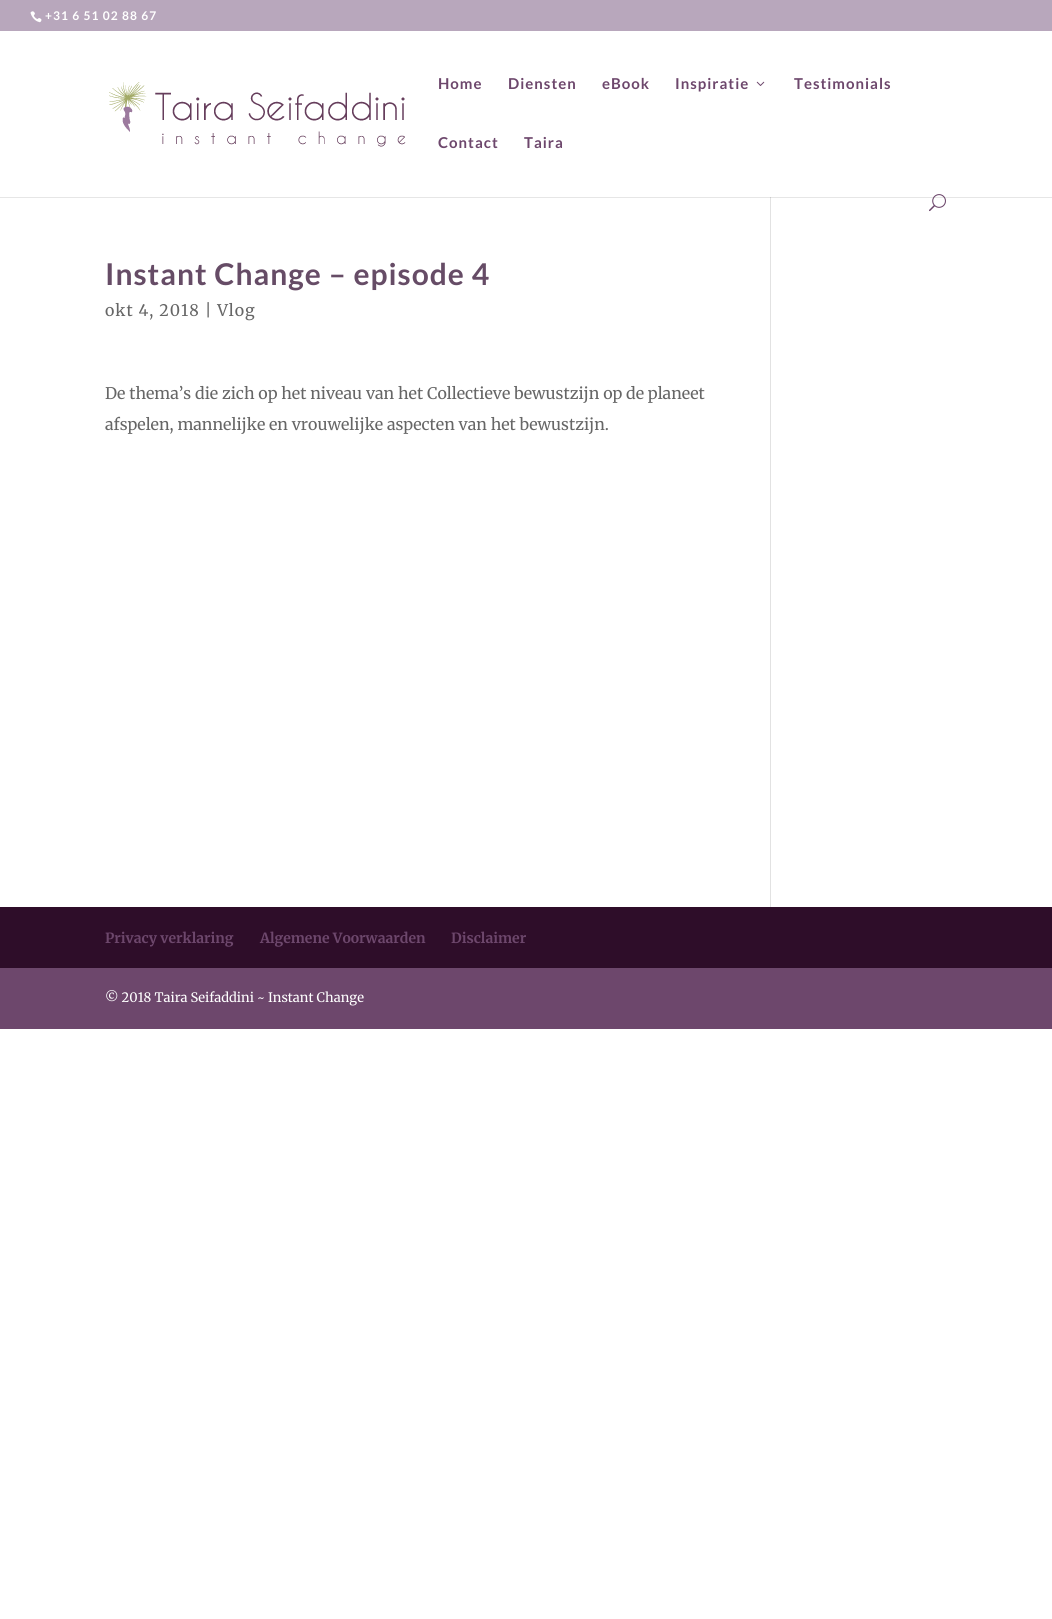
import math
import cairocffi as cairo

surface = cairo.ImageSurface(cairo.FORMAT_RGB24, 1052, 1619)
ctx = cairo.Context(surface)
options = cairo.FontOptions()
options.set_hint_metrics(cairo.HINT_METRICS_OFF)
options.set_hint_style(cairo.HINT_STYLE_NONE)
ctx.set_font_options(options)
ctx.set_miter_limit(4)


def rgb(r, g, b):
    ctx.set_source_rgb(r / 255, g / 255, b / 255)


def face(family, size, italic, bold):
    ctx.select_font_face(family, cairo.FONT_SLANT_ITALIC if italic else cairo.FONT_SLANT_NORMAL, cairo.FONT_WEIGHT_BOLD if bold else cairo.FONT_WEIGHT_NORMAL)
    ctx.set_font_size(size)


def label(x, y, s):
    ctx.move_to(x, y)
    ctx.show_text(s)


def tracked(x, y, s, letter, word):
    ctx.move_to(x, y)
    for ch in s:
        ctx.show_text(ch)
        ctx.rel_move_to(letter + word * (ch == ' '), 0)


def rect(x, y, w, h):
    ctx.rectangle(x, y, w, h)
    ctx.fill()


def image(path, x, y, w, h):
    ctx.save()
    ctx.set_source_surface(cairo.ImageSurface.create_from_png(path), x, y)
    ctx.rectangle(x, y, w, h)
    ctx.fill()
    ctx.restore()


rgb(255, 255, 255)
ctx.paint()
rgb(230, 230, 230)
rect(0, 197, 1052, 1)
rgb(184, 167, 188)
rect(0, 0, 1052, 31)
image('image0.png', 30, 11, 12, 12)
face('Lato', 12, 0, 1)
rgb(255, 255, 255)
tracked(45, 20, '+31 6 51 02 88 67', 1, 0)
image('image1.png', 109, 82, 297, 65)
face('Lato', 15, 0, 1)
rgb(109, 71, 108)
tracked(438, 89, 'Home', 1, 0)
tracked(508, 89, 'Diensten', 1, 0)
tracked(602, 89, 'eBook', 1, 0)
tracked(675, 89, 'Inspiratie', 1, 0)
image('image2.png', 756, 81, 9, 5)
tracked(794, 89, 'Testimonials', 1, 0)
tracked(438, 148, 'Contact', 1, 0)
tracked(524, 148, 'Taira', 1, 0)
image('image3.png', 929, 194, 17, 18)
face('Lato', 30, 0, 1)
rgb(102, 76, 102)
tracked(105, 285, 'Instant Change – episode 4', 1, 0)
face('Merriweather Light', 16, 0, 0)
rgb(102, 102, 102)
tracked(105, 316, 'okt 4, 2018 | Vlog', 1, 0)
label(105, 399, 'De thema’s die zich op het niveau van het Collectieve bewustzijn op de planeet')
label(105, 430, 'afspelen, mannelijke en vrouwelijke aspecten van het bewustzijn.')
rgb(226, 226, 226)
rect(770, 197, 1, 710)
rgb(203, 203, 203)
rect(770, 197, 1, 1)
rgb(46, 13, 41)
rect(0, 907, 1052, 61)
face('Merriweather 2 Light', 14, 0, 0)
rgb(109, 71, 108)
label(105, 943, 'Privacy verklaring')
label(260, 943, 'Algemene Voorwaarden')
label(451, 943, 'Disclaimer')
rect(0, 968, 1052, 61)
face('Merriweather Light', 13, 0, 0)
rgb(255, 255, 255)
label(105, 1002, '© 2018 Taira Seifaddini ~ Instant Change')
surface.write_to_png('render.png')
